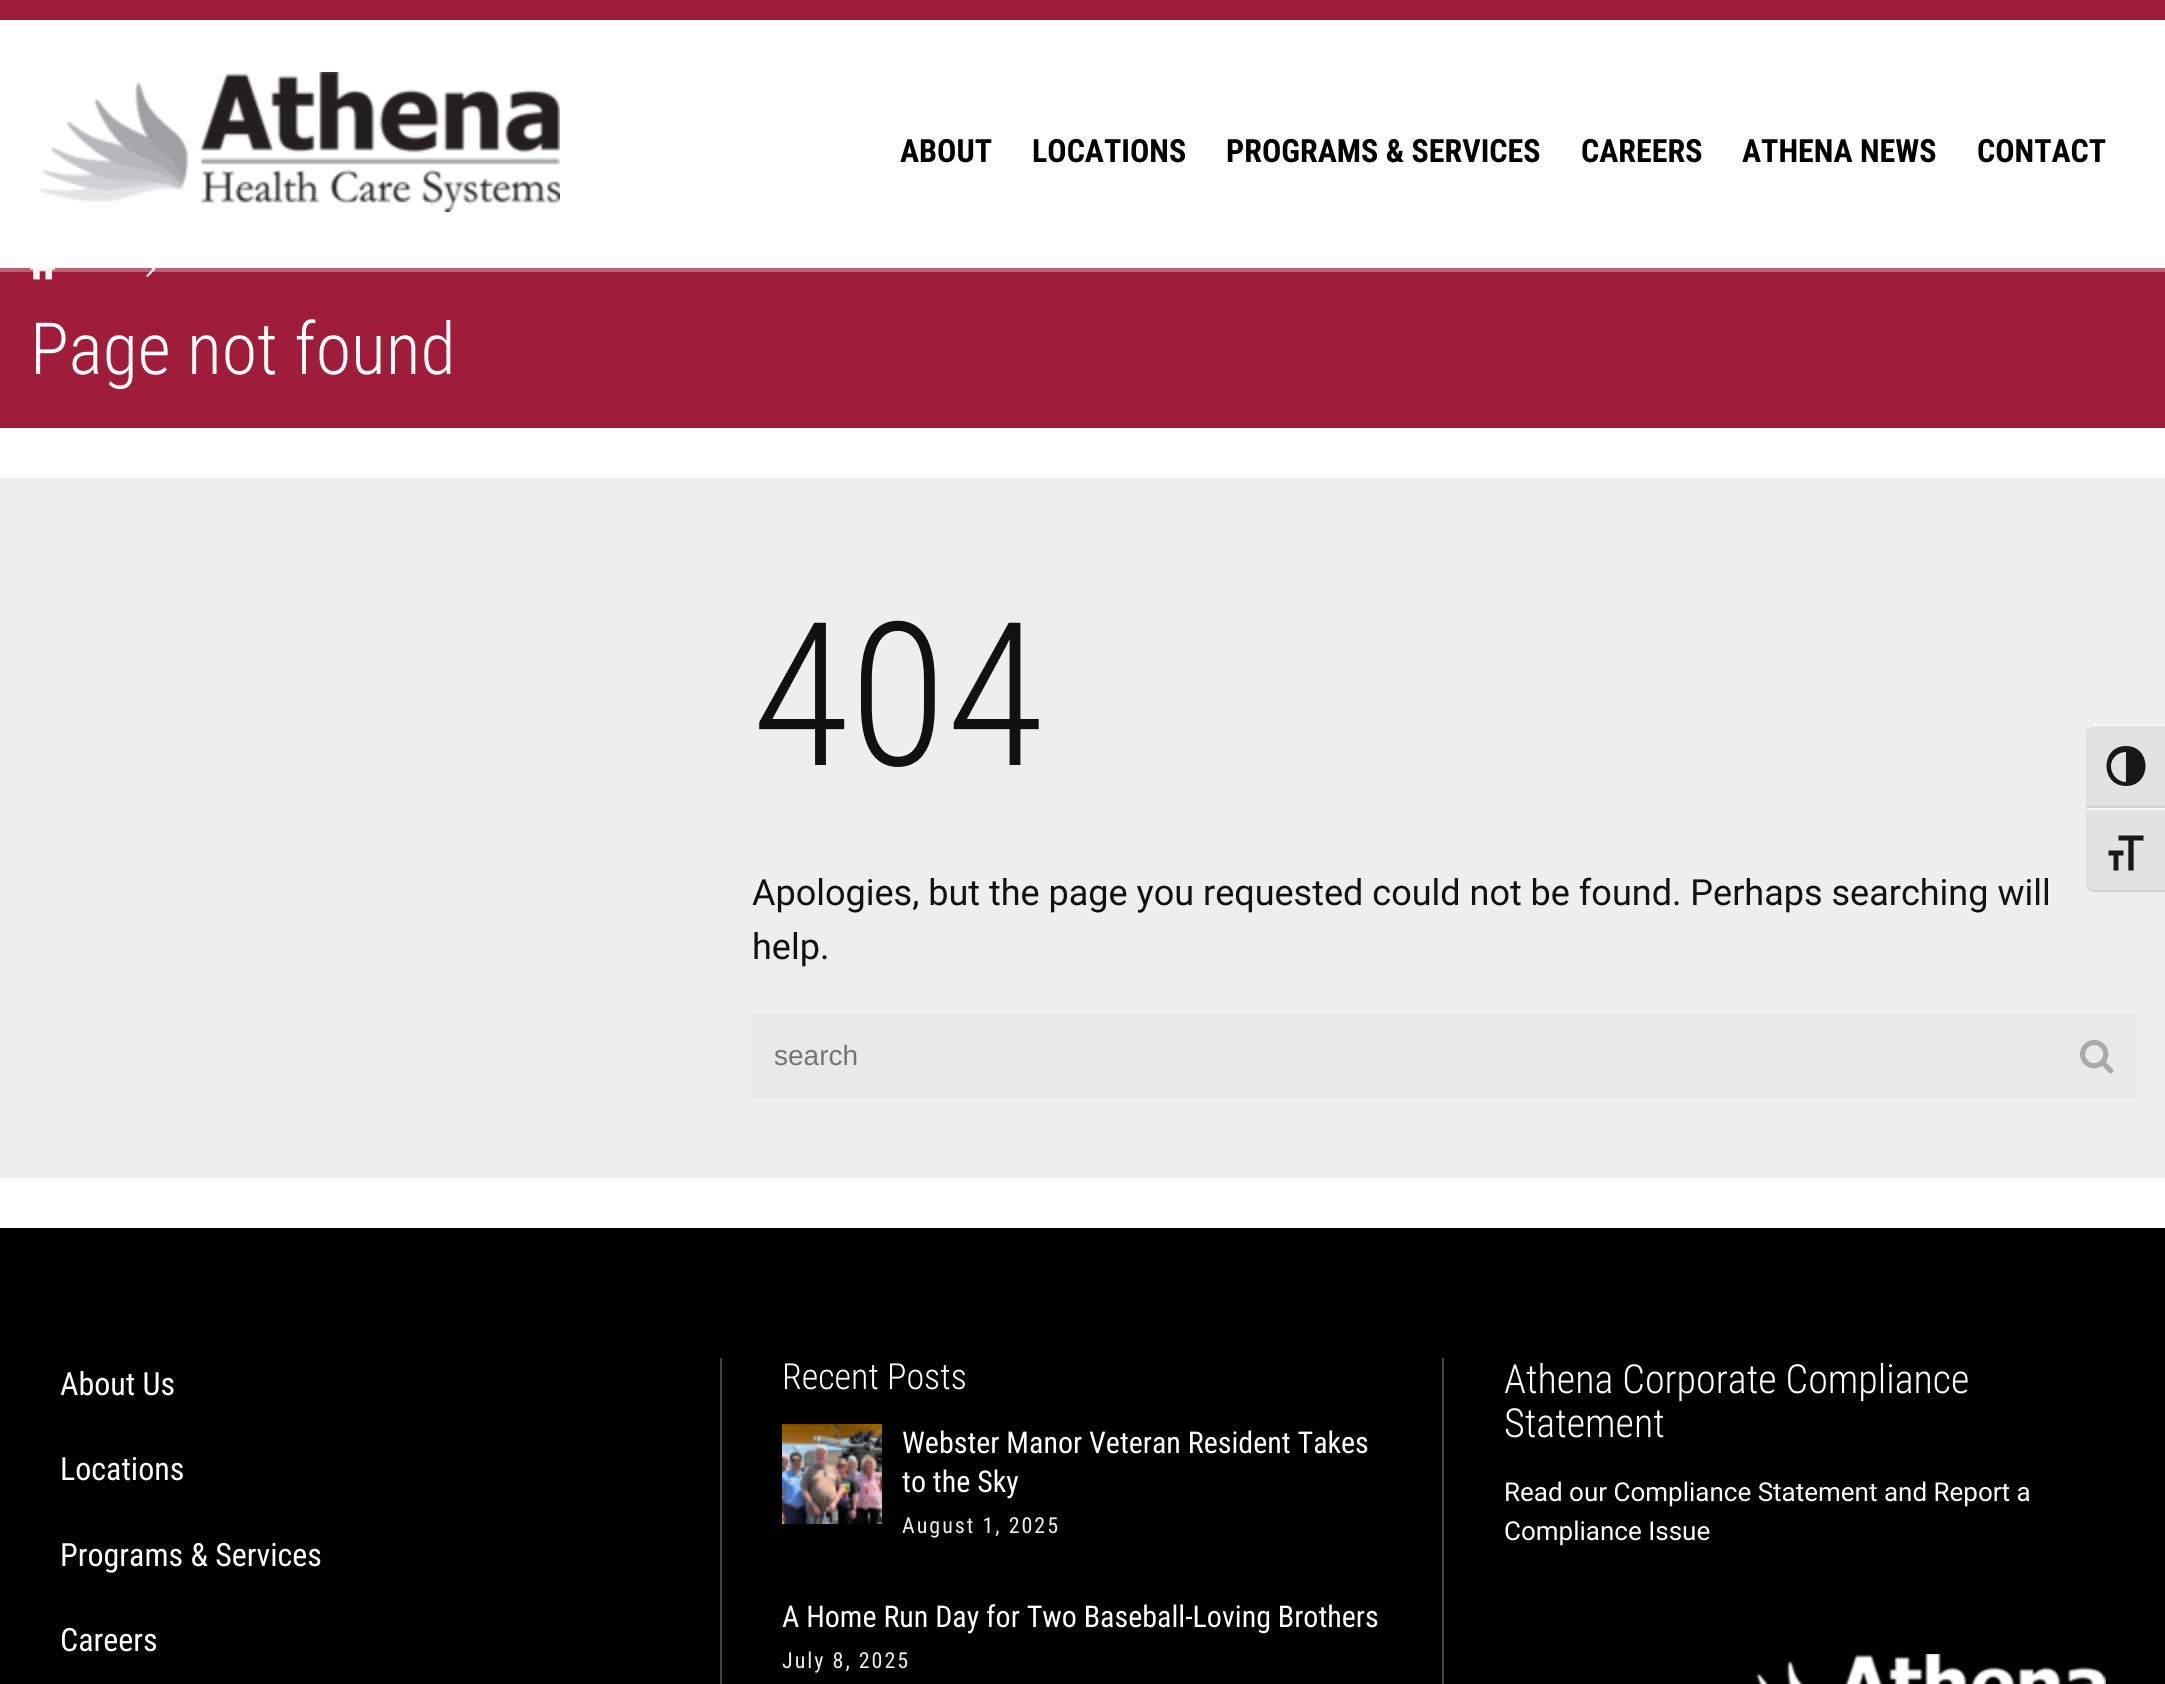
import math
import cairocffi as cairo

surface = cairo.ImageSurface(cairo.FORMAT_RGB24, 2165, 1684)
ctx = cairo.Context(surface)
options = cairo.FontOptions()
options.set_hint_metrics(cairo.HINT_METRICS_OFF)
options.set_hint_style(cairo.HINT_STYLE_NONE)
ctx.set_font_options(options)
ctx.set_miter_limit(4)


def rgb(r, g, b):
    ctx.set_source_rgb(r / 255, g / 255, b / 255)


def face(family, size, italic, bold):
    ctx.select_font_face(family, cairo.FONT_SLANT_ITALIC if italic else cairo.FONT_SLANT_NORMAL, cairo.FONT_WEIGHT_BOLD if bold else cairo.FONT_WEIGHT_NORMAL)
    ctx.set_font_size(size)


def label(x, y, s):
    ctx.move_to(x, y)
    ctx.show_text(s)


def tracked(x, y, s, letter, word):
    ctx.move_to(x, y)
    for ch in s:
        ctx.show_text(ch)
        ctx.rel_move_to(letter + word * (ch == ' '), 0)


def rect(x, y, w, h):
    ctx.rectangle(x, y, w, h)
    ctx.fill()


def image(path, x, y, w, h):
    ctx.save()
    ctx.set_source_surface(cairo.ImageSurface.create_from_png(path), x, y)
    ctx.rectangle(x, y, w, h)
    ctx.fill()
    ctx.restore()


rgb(255, 255, 255)
ctx.paint()
rgb(159, 28, 58)
rect(0, 0, 2165, 20)
image('image0.png', 40, 72, 520, 140)
face('Roboto Condensed', 32, 0, 1)
rgb(0, 0, 0)
label(900, 162, 'ABOUT')
label(1032, 162, 'LOCATIONS')
label(1226, 162, 'PROGRAMS & SERVICES')
label(1581, 162, 'CAREERS')
label(1742, 162, 'ATHENA NEWS')
label(1977, 162, 'CONTACT')
rgb(159, 28, 59)
rect(0, 268, 2165, 160)
image('image1.png', 30, 268, 26, 12)
image('image2.png', 146, 268, 10, 9)
ctx.set_source_rgba(1, 1, 1, 0.3)
rect(0, 268, 2165, 4)
face('Roboto Condensed Light', 72, 0, 0)
rgb(255, 255, 255)
label(30, 374, 'Page not found')
rgb(238, 238, 238)
rect(0, 478, 2165, 700)
face('Roboto Condensed Light', 200, 0, 0)
rgb(17, 17, 17)
label(752, 765, '404')
face('Roboto', 36, 0, 0)
label(752, 905, 'Apologies, but the page you requested could not be found. Perhaps searching will')
label(752, 959, 'help.')
rgb(233, 233, 233)
rect(752, 1014, 1384, 84)
face('Liberation Sans', 28, 0, 0)
rgb(117, 117, 117)
label(774, 1065, 'search')
image('image3.png', 2080, 1040, 34, 34)
rgb(0, 0, 0)
rect(0, 1228, 2165, 456)
face('Roboto Condensed', 32, 0, 0)
rgb(255, 255, 255)
label(60, 1395, 'About Us')
label(60, 1480, 'Locations')
label(60, 1566, 'Programs & Services')
label(60, 1651, 'Careers')
rgb(68, 68, 68)
rect(720, 1358, 2, 326)
face('Roboto Condensed Light', 36, 0, 0)
rgb(255, 255, 255)
label(782, 1389, 'Recent Posts')
image('image4.png', 782, 1424, 100, 100)
face('Roboto Condensed', 30, 0, 0)
label(902, 1453, 'Webster Manor Veteran Resident Takes')
label(902, 1492, 'to the Sky')
face('Roboto Condensed', 22, 0, 0)
rgb(238, 238, 238)
tracked(902, 1533, 'August 1, 2025', 2, 0)
face('Roboto Condensed', 30, 0, 0)
rgb(255, 255, 255)
label(782, 1627, 'A Home Run Day for Two Baseball-Loving Brothers')
face('Roboto Condensed', 22, 0, 0)
rgb(238, 238, 238)
tracked(782, 1668, 'July 8, 2025', 2, 0)
rgb(68, 68, 68)
rect(1442, 1358, 2, 326)
face('Roboto Condensed Light', 40, 0, 0)
rgb(255, 255, 255)
label(1504, 1393, 'Athena Corporate Compliance')
label(1504, 1437, 'Statement')
face('Roboto', 26, 0, 0)
label(1504, 1501, 'Read our Compliance Statement and Report a')
label(1504, 1540, 'Compliance Issue')
image('image5.png', 1756, 1654, 350, 30)
rgb(226, 226, 226)
ctx.new_path()
ctx.move_to(2094, 724)
ctx.line_to(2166, 724)
ctx.line_to(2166, 808)
ctx.line_to(2086, 808)
ctx.line_to(2086, 732)
ctx.curve_to(2086, 727.5, 2089.5, 724, 2094, 724)
ctx.close_path()
ctx.fill()
rgb(245, 245, 245)
ctx.new_path()
ctx.move_to(2094, 726)
ctx.line_to(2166, 726)
ctx.line_to(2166, 724)
ctx.line_to(2094, 724)
ctx.curve_to(2090, 724, 2086, 728, 2086, 732)
ctx.curve_to(2086, 729, 2090, 726, 2094, 726)
ctx.close_path()
ctx.fill()
rgb(210, 210, 210)
rect(2086, 806, 79, 2)
rgb(24, 24, 24)
ctx.new_path()
ctx.move_to(2126, 746)
ctx.curve_to(2100, 746, 2100, 786, 2126, 786)
ctx.curve_to(2152, 786, 2152, 746, 2126, 746)
ctx.close_path()
ctx.move_to(2111, 766)
ctx.curve_to(2111, 758, 2118, 752, 2126, 752)
ctx.line_to(2126, 782)
ctx.curve_to(2118, 782, 2111, 775, 2111, 766)
ctx.close_path()
ctx.fill()
rgb(226, 226, 226)
ctx.new_path()
ctx.move_to(2086, 808)
ctx.line_to(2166, 808)
ctx.line_to(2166, 892)
ctx.line_to(2094, 892)
ctx.curve_to(2089.5, 892, 2086, 888.5, 2086, 884)
ctx.close_path()
ctx.fill()
rgb(245, 245, 245)
rect(2086, 808, 79, 2)
rgb(210, 210, 210)
ctx.new_path()
ctx.move_to(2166, 892)
ctx.line_to(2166, 890)
ctx.line_to(2094, 890)
ctx.curve_to(2090, 890, 2086, 887, 2086, 884)
ctx.curve_to(2086, 888, 2090, 892, 2094, 892)
ctx.close_path()
ctx.fill()
image('image6.png', 2108, 835, 36, 36)
surface.write_to_png('render.png')
